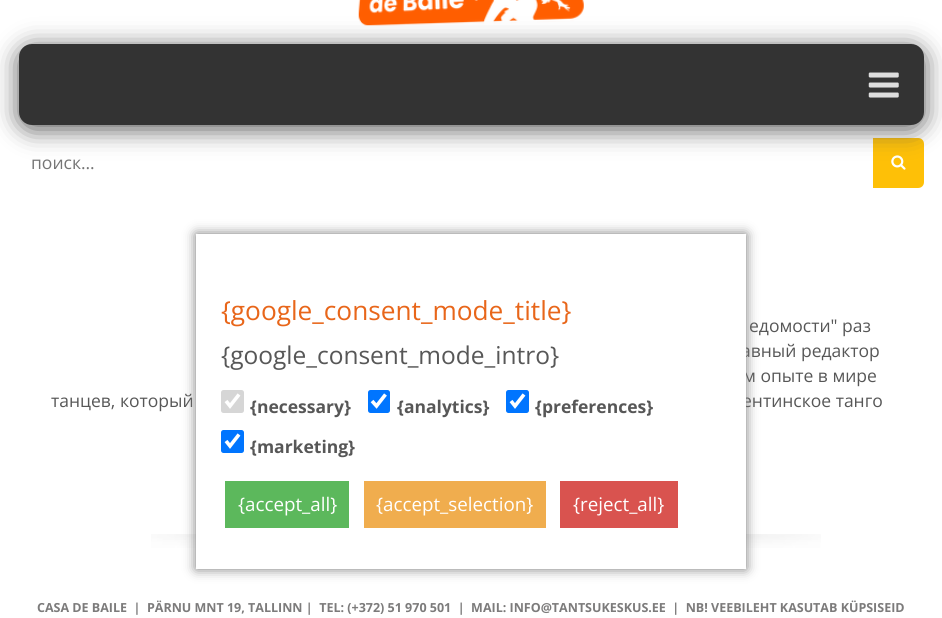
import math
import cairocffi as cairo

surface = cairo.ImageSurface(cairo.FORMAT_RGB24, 942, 618)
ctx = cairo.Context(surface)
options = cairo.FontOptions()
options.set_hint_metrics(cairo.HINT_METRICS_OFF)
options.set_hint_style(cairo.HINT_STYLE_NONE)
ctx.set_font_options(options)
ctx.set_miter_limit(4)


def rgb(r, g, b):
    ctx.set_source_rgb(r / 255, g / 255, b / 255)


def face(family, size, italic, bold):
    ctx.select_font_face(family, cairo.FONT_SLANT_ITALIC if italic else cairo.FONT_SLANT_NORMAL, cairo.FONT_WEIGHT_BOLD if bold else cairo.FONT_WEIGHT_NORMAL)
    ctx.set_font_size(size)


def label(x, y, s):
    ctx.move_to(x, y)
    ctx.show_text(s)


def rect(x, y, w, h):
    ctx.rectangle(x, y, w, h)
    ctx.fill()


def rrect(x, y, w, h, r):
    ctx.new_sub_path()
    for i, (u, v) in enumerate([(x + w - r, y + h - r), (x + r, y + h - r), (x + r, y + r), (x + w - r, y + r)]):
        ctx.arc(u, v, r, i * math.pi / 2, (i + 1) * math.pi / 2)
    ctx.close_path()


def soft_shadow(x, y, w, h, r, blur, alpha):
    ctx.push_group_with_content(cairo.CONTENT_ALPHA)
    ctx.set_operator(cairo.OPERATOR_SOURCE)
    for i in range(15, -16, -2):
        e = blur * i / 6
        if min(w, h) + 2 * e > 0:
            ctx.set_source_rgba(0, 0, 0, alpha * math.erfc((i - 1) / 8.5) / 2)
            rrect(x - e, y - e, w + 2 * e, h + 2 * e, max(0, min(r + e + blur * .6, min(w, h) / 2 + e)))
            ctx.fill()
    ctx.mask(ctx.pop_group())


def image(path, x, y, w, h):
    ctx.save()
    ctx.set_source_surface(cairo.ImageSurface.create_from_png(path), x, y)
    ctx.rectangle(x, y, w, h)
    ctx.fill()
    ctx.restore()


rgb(255, 255, 255)
ctx.paint()
rgb(254, 192, 7)
ctx.new_path()
ctx.move_to(873, 138)
ctx.line_to(918, 138)
ctx.curve_to(921.5, 138, 924, 140.5, 924, 144)
ctx.line_to(924, 182)
ctx.curve_to(924, 185.5, 921.5, 188, 918, 188)
ctx.line_to(873, 188)
ctx.close_path()
ctx.fill()
image('image2.png', 891, 155, 15, 15)
rgb(85, 85, 85)
soft_shadow(19, 48, 905, 81, 13, 12.5, 1)
image('image0.png', 358, 0, 226, 26)
rgb(51, 51, 51)
rrect(19, 44, 905, 81, 13)
ctx.fill()
image('image1.png', 868, 72, 31, 26)
face('Open Sans', 17.5, 0, 0)
rgb(117, 117, 117)
label(31, 169, 'поиск...')
rgb(87, 87, 87)
label(749, 332, 'едомости" раз')
label(741, 357, 'авный редактор')
label(743, 382, 'м опыте в мире')
label(51, 407, 'танцев, который')
label(742, 407, 'ентинское танго')
image('image3.png', 151, 534, 670, 14)
face('Open Sans', 12.5, 0, 1)
rgb(124, 123, 123)
label(37, 612, 'CASA DE BAILE  |  PÄRNU MNT 19, TALLINN |  TEL: (+372) 51 970 501  |  MAIL: INFO@TANTSUKESKUS.EE  |  NB! VEEBILEHT KASUTAB KÜPSISEID')
rgb(119, 119, 119)
soft_shadow(196, 234, 550, 335, 0, 6, 1)
rgb(255, 255, 255)
rect(196, 234, 550, 335)
face('Open Sans', 26.25, 0, 0)
rgb(232, 102, 26)
label(221, 320, '{google_consent_mode_title}')
face('Open Sans', 24.5, 0, 0)
rgb(87, 87, 87)
label(221, 364, '{google_consent_mode_intro}')
rgb(214, 214, 214)
rrect(221, 390, 23, 23, 2.5)
ctx.fill()
ctx.new_path()
ctx.move_to(226, 401)
ctx.line_to(230, 406)
ctx.line_to(239, 394.5)
rgb(255, 255, 255)
ctx.set_line_width(3.6)
ctx.stroke()
face('Open Sans', 17.5, 0, 1)
rgb(87, 87, 87)
label(250, 413, '{necessary}')
rgb(0, 117, 255)
rrect(368, 390, 22, 23, 2.5)
ctx.fill()
ctx.new_path()
ctx.move_to(372, 401)
ctx.line_to(376.5, 406)
ctx.line_to(385.5, 394.5)
rgb(255, 255, 255)
ctx.stroke()
rgb(87, 87, 87)
label(397, 413, '{analytics}')
rgb(0, 117, 255)
rrect(506, 390, 23, 23, 2.5)
ctx.fill()
ctx.new_path()
ctx.move_to(511, 401)
ctx.line_to(515, 406)
ctx.line_to(524, 394.5)
rgb(255, 255, 255)
ctx.stroke()
rgb(87, 87, 87)
label(535, 413, '{preferences}')
rgb(0, 117, 255)
rrect(221, 430, 23, 23, 2.5)
ctx.fill()
ctx.new_path()
ctx.move_to(226, 441)
ctx.line_to(230, 446)
ctx.line_to(239, 434.5)
rgb(255, 255, 255)
ctx.stroke()
rgb(87, 87, 87)
label(250, 453, '{marketing}')
rgb(92, 184, 92)
rect(225, 481, 124, 47)
face('Open Sans', 18.75, 0, 0)
rgb(255, 255, 255)
label(238, 511, '{accept_all}')
rgb(240, 173, 78)
rect(364, 481, 182, 47)
rgb(255, 255, 255)
label(376, 511, '{accept_selection}')
rgb(217, 83, 79)
rect(560, 481, 118, 47)
rgb(255, 255, 255)
label(573, 511, '{reject_all}')
surface.write_to_png('render.png')
